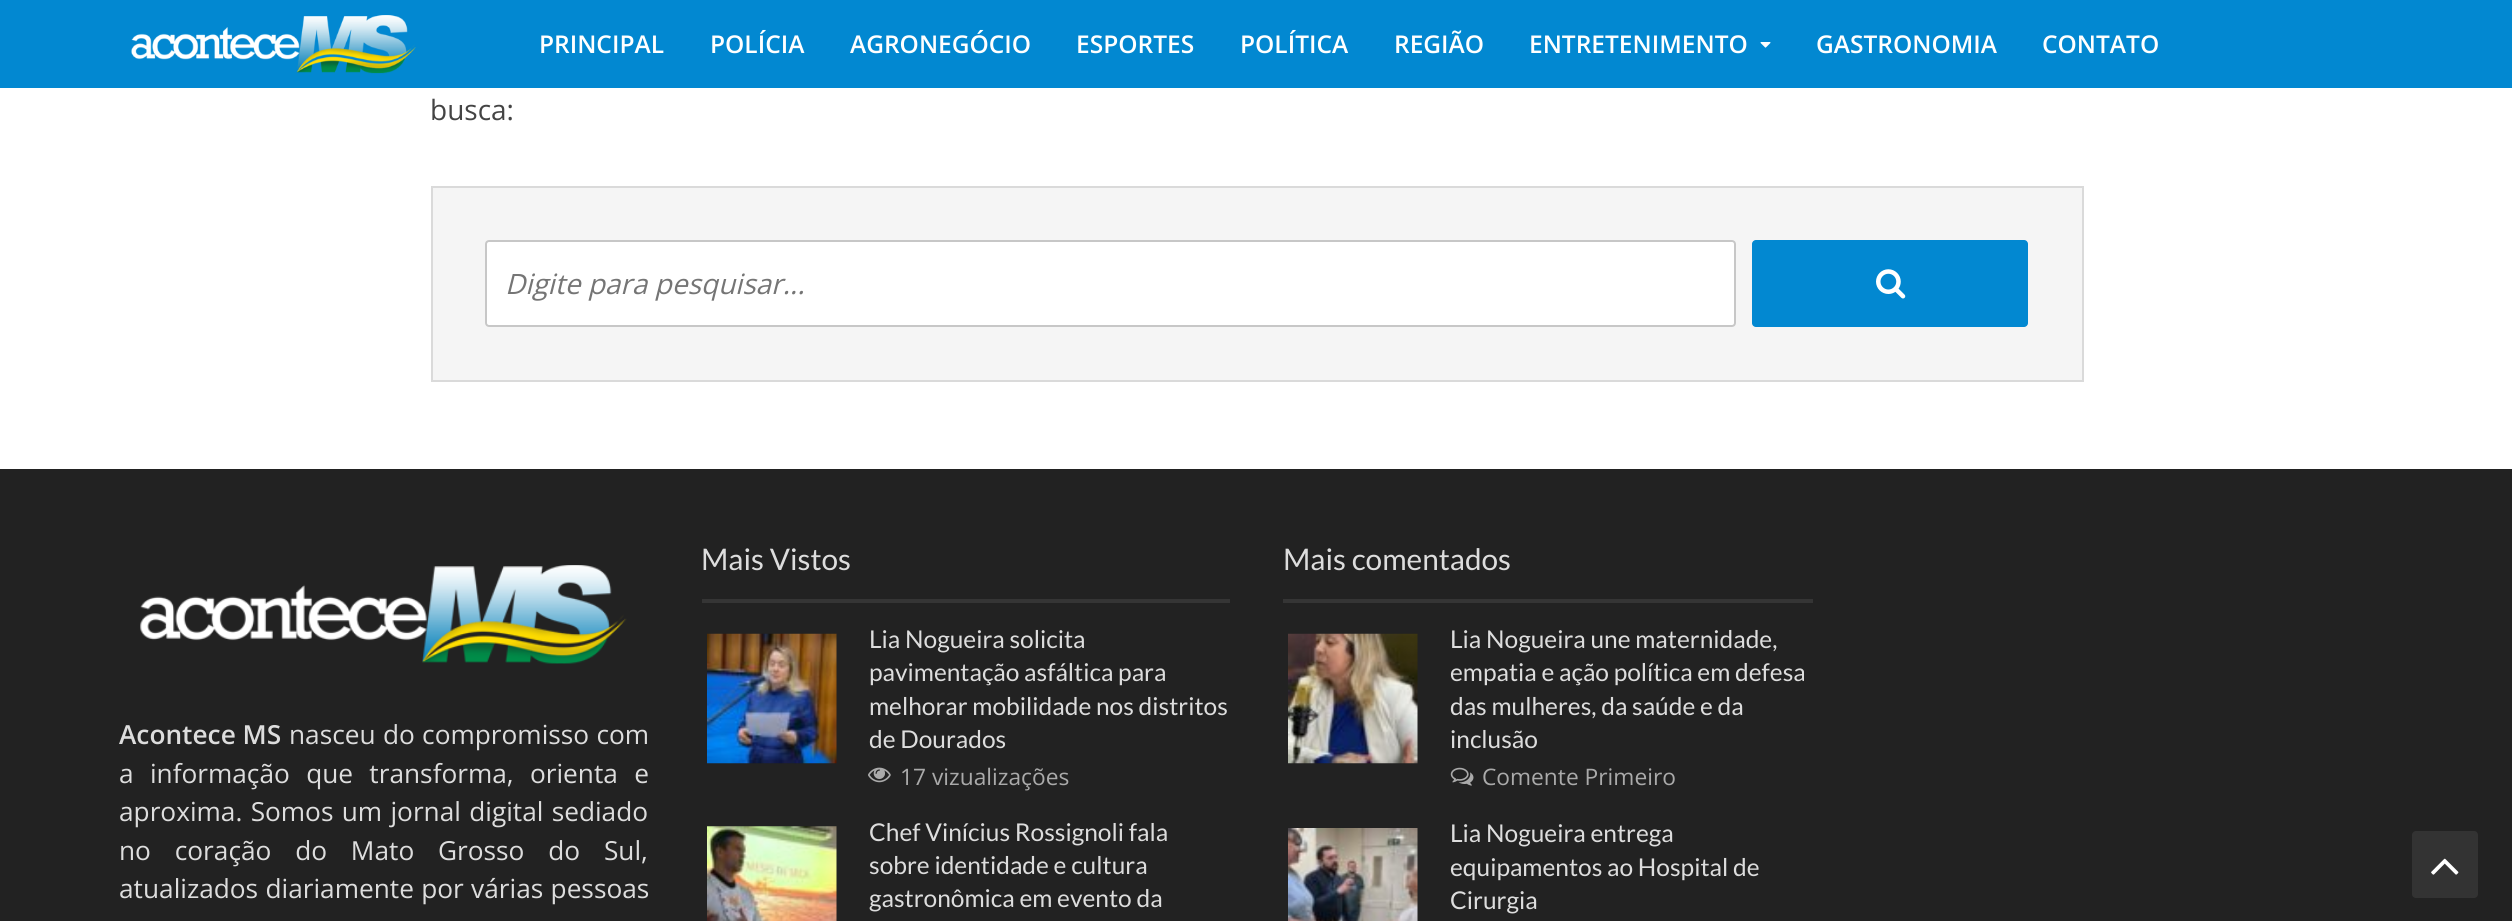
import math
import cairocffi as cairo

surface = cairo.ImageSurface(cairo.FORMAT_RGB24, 2512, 921)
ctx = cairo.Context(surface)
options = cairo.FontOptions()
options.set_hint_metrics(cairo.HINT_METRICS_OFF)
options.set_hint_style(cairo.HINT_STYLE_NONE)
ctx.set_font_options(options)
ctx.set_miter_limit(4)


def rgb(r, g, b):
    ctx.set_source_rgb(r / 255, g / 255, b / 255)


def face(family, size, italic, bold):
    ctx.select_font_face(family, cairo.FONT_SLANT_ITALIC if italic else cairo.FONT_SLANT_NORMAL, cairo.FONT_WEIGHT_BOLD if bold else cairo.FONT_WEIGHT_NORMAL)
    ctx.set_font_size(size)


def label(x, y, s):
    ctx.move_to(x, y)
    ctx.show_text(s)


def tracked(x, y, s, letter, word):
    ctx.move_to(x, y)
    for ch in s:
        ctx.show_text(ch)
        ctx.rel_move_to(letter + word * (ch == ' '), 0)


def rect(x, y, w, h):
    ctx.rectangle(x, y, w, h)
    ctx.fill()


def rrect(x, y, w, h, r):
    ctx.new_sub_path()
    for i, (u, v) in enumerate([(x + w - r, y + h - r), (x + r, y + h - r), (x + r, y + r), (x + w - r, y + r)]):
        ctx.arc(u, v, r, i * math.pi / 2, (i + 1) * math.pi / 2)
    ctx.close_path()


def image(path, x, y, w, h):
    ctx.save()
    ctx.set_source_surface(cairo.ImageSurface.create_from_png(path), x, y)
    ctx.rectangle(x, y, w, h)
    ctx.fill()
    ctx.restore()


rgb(255, 255, 255)
ctx.paint()
rgb(2, 136, 209)
rect(0, 0, 2512, 88)
image('image0.png', 131, 15, 285, 59)
face('Open Sans SemiBold', 24.5, 0, 0)
rgb(255, 255, 255)
label(539, 53, 'PRINCIPAL')
label(710, 53, 'POLÍCIA')
label(850, 53, 'AGRONEGÓCIO')
label(1076, 53, 'ESPORTES')
label(1240, 53, 'POLÍTICA')
label(1394, 53, 'REGIÃO')
label(1529, 53, 'ENTRETENIMENTO')
image('image1.png', 1760, 42, 11, 6)
label(1816, 53, 'GASTRONOMIA')
label(2042, 53, 'CONTATO')
face('Open Sans', 28, 0, 0)
rgb(68, 68, 68)
label(430, 120, 'busca:')
rgb(245, 245, 245)
ctx.rectangle(432, 187, 1651, 194)
ctx.fill_preserve()
rgb(218, 218, 218)
ctx.stroke()
rgb(255, 255, 255)
rrect(485, 240, 1251, 87, 4)
ctx.fill()
rrect(486, 241, 1249, 85, 3)
ctx.set_source_rgba(0.267, 0.267, 0.267, 0.3)
ctx.stroke()
face('Open Sans', 28, 1, 0)
rgb(117, 117, 117)
label(505, 294, 'Digite para pesquisar...')
rgb(2, 136, 209)
rrect(1752, 240, 276, 87, 4)
ctx.fill()
image('image2.png', 1876, 269, 30, 30)
rgb(34, 34, 34)
rect(0, 469, 2512, 452)
image('image3.png', 140, 565, 487, 99)
face('Open Sans SemiBold', 26.25, 0, 0)
rgb(221, 221, 221)
label(119, 744, 'Acontece MS')
face('Open Sans', 26.25, 0, 0)
tracked(289, 744, 'nasceu do compromisso com', 0, 0.5)
tracked(119, 783, 'a informação que transforma, orienta e', 0, 9.5)
tracked(119, 821, 'aproxima. Somos um jornal digital sediado', 0, 1.5)
tracked(119, 860, 'no coração do Mato Grosso do Sul,', 0, 17)
tracked(119, 898, 'atualizados diariamente por várias pessoas', 0, 0.5)
face('Lato', 29.75, 0, 0)
label(701, 570, 'Mais Vistos')
rgb(53, 53, 53)
rect(702, 599, 528, 4)
image('image4.png', 707, 633, 130, 131)
face('Lato', 24.5, 0, 0)
rgb(221, 221, 221)
label(869, 648, 'Lia Nogueira solicita')
label(869, 681, 'pavimentação asfáltica para')
label(869, 715, 'melhorar mobilidade nos distritos')
label(869, 748, 'de Dourados')
image('image5.png', 868, 767, 23, 16)
face('Open Sans', 22.75, 0, 0)
rgb(170, 170, 170)
label(900, 785, '17 vizualizações')
image('image6.png', 707, 826, 130, 95)
face('Lato', 24.5, 0, 0)
rgb(221, 221, 221)
label(869, 841, 'Chef Vinícius Rossignoli fala')
label(869, 874, 'sobre identidade e cultura')
label(869, 907, 'gastronômica em evento da')
face('Lato', 29.75, 0, 0)
label(1283, 570, 'Mais comentados')
rgb(53, 53, 53)
rect(1283, 599, 530, 4)
image('image7.png', 1288, 633, 130, 131)
face('Lato', 24.5, 0, 0)
rgb(221, 221, 221)
label(1450, 648, 'Lia Nogueira une maternidade,')
label(1450, 681, 'empatia e ação política em defesa')
label(1450, 715, 'das mulheres, da saúde e da')
label(1450, 748, 'inclusão')
image('image8.png', 1450, 767, 24, 19)
face('Open Sans', 22.75, 0, 0)
rgb(170, 170, 170)
label(1482, 785, 'Comente Primeiro')
image('image9.png', 1288, 828, 130, 93)
face('Lato', 24.5, 0, 0)
rgb(221, 221, 221)
label(1450, 842, 'Lia Nogueira entrega')
label(1450, 876, 'equipamentos ao Hospital de')
label(1450, 909, 'Cirurgia')
rgb(51, 51, 51)
rrect(2412, 831, 66, 67, 4)
ctx.fill()
image('image10.png', 2431, 858, 28, 17)
surface.write_to_png('render.png')
